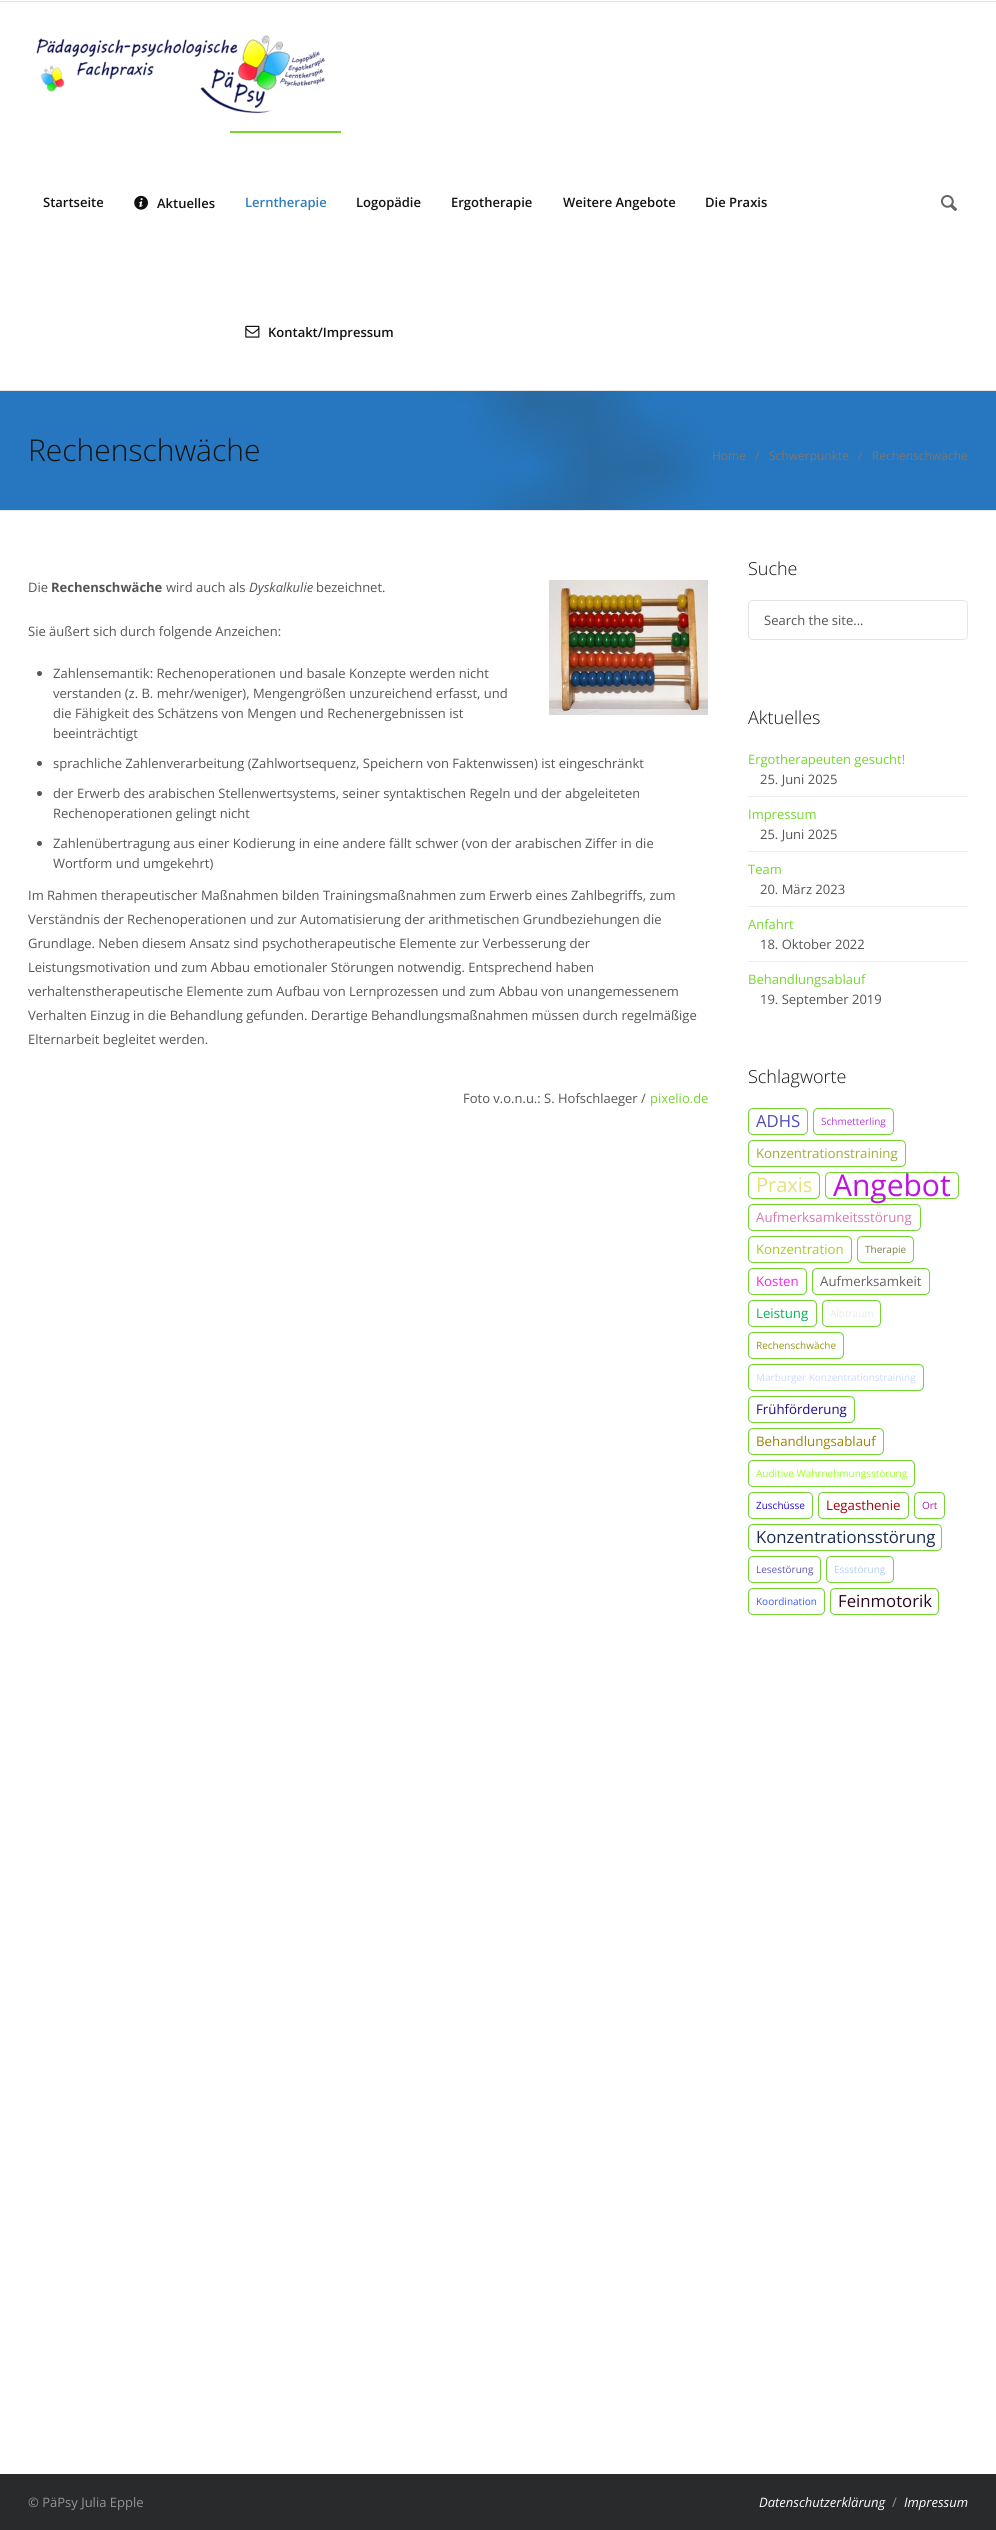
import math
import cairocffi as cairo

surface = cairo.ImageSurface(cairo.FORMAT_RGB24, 996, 2530)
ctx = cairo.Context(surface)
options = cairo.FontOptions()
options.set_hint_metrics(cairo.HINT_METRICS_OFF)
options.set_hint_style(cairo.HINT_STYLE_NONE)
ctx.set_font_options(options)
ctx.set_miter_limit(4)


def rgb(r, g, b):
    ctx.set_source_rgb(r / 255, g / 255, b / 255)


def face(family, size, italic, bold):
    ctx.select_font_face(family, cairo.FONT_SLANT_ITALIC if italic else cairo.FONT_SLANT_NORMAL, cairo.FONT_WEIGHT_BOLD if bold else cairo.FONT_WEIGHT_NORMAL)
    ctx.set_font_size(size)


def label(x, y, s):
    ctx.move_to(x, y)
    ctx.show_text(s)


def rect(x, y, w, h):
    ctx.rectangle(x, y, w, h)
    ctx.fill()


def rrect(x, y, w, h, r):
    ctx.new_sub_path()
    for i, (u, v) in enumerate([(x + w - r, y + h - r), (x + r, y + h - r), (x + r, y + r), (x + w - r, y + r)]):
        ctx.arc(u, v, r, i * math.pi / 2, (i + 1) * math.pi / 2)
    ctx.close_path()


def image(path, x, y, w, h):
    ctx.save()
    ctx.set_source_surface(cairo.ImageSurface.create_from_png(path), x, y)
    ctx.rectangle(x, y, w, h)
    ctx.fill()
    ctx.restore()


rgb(255, 255, 255)
ctx.paint()
rgb(229, 229, 229)
rect(0, 1, 996, 1)
rect(0, 390, 996, 1)
image('image0.png', 36, 35, 289, 79)
face('Open Sans SemiBold', 13, 0, 0)
rgb(19, 19, 19)
label(43, 207, 'Startseite')
image('image1.png', 134, 195, 14, 15)
label(157, 208, 'Aktuelles')
rgb(116, 214, 47)
rect(230, 131, 111, 2)
rgb(49, 125, 191)
label(245, 207, 'Lerntherapie')
rgb(19, 19, 19)
label(356, 207, 'Logopädie')
label(451, 207, 'Ergotherapie')
label(563, 207, 'Weitere Angebote')
label(705, 207, 'Die Praxis')
image('image2.png', 245, 325, 15, 13)
label(268, 337, 'Kontakt/Impressum')
image('image3.png', 941, 195, 16, 16)
rgb(38, 119, 191)
rect(0, 391, 996, 119)
rgb(229, 229, 229)
rect(0, 510, 996, 1)
image('image4.png', 412, 391, 302, 119)
face('Open Sans Light', 30, 0, 0)
rgb(19, 19, 19)
label(28, 461, 'Rechenschwäche')
face('Open Sans', 12, 0, 0)
rgb(119, 119, 119)
label(712, 460, 'Home')
label(755, 460, '/')
label(769, 460, 'Schwerpunkte')
label(858, 460, '/   Rechenschwäche')
face('Open Sans', 13, 0, 0)
rgb(85, 85, 85)
label(28, 592, 'Die')
face('Open Sans', 13, 0, 1)
label(51, 592, 'Rechenschwäche')
face('Open Sans', 13, 0, 0)
label(166, 592, 'wird auch als')
face('Open Sans', 13, 1, 0)
label(249, 592, 'Dyskalkulie')
face('Open Sans', 13, 0, 0)
label(316, 592, 'bezeichnet.')
image('image5.png', 549, 580, 159, 135)
label(28, 636, 'Sie äußert sich durch folgende Anzeichen:')
ctx.new_path()
ctx.arc(39.5, 673.5, 2.5, 0, 2 * math.pi)
ctx.fill()
label(53, 678, 'Zahlensemantik: Rechenoperationen und basale Konzepte werden nicht')
label(53, 698, 'verstanden (z. B. mehr/weniger), Mengengrößen unzureichend erfasst, und')
label(53, 718, 'die Fähigkeit des Schätzens von Mengen und Rechenergebnissen ist')
label(53, 738, 'beeinträchtigt')
ctx.new_path()
ctx.arc(39.5, 763.5, 2.5, 0, 2 * math.pi)
ctx.fill()
label(53, 768, 'sprachliche Zahlenverarbeitung (Zahlwortsequenz, Speichern von Faktenwissen) ist eingeschränkt')
ctx.new_path()
ctx.arc(39.5, 793.5, 2.5, 0, 2 * math.pi)
ctx.fill()
label(53, 798, 'der Erwerb des arabischen Stellenwertsystems, seiner syntaktischen Regeln und der abgeleiteten')
label(53, 818, 'Rechenoperationen gelingt nicht')
ctx.new_path()
ctx.arc(39.5, 843.5, 2.5, 0, 2 * math.pi)
ctx.fill()
label(53, 848, 'Zahlenübertragung aus einer Kodierung in eine andere fällt schwer (von der arabischen Ziffer in die')
label(53, 868, 'Wortform und umgekehrt)')
label(28, 900, 'Im Rahmen therapeutischer Maßnahmen bilden Trainingsmaßnahmen zum Erwerb eines Zahlbegriffs, zum')
label(28, 924, 'Verständnis der Rechenoperationen und zur Automatisierung der arithmetischen Grundbeziehungen die')
label(28, 948, 'Grundlage. Neben diesem Ansatz sind psychotherapeutische Elemente zur Verbesserung der')
label(28, 972, 'Leistungsmotivation und zum Abbau emotionaler Störungen notwendig. Entsprechend haben')
label(28, 996, 'verhaltenstherapeutische Elemente zum Aufbau von Lernprozessen und zum Abbau von unangemessenem')
label(28, 1020, 'Verhalten Einzug in die Behandlung gefunden. Derartige Behandlungsmaßnahmen müssen durch regelmäßige')
label(28, 1044, 'Elternarbeit begleitet werden.')
label(463, 1103, 'Foto v.o.n.u.: S. Hofschlaeger /')
rgb(116, 214, 47)
label(650, 1103, 'pixelio.de')
face('Open Sans Light', 18, 0, 0)
rgb(19, 19, 19)
label(748, 575, 'Suche')
rrect(748.5, 600.5, 219, 39, 4.5)
rgb(229, 229, 229)
ctx.set_line_width(1)
ctx.stroke()
face('Open Sans', 13, 0, 0)
rgb(85, 85, 85)
label(764, 625, 'Search the site...')
face('Open Sans Light', 18, 0, 0)
rgb(19, 19, 19)
label(748, 724, 'Aktuelles')
rgb(238, 238, 238)
rect(748, 796, 220, 1)
face('Open Sans', 13, 0, 0)
rgb(116, 214, 47)
label(748, 764, 'Ergotherapeuten gesucht!')
rgb(85, 85, 85)
label(760, 784, '25. Juni 2025')
rgb(238, 238, 238)
rect(748, 851, 220, 1)
rgb(116, 214, 47)
label(748, 819, 'Impressum')
rgb(85, 85, 85)
label(760, 839, '25. Juni 2025')
rgb(238, 238, 238)
rect(748, 906, 220, 1)
rgb(116, 214, 47)
label(748, 874, 'Team')
rgb(85, 85, 85)
label(760, 894, '20. März 2023')
rgb(238, 238, 238)
rect(748, 961, 220, 1)
rgb(116, 214, 47)
label(748, 929, 'Anfahrt')
rgb(85, 85, 85)
label(760, 949, '18. Oktober 2022')
rgb(116, 214, 47)
label(748, 984, 'Behandlungsablauf')
rgb(85, 85, 85)
label(760, 1004, '19. September 2019')
face('Open Sans Light', 18, 0, 0)
rgb(19, 19, 19)
label(748, 1083, 'Schlagworte')
rrect(748.5, 1108.5, 59, 26, 4.5)
rgb(116, 214, 47)
ctx.stroke()
face('Open Sans', 16.75, 0, 0)
rgb(76, 76, 185)
label(756, 1127, 'ADHS')
rrect(813.5, 1108.5, 80, 26, 4.5)
rgb(116, 214, 47)
ctx.stroke()
face('Open Sans', 10, 0, 0)
rgb(176, 64, 209)
label(821, 1125, 'Schmetterling')
rrect(748.5, 1140.5, 157, 26, 4.5)
rgb(116, 214, 47)
ctx.stroke()
face('Open Sans', 13.25, 0, 0)
rgb(157, 174, 56)
label(756, 1158, 'Konzentrationstraining')
rrect(748.5, 1172.5, 71, 26, 4.5)
rgb(116, 214, 47)
ctx.stroke()
face('Open Sans', 20, 0, 0)
rgb(229, 225, 115)
label(756, 1192, 'Praxis')
rrect(825.5, 1172.5, 133, 26, 4.5)
rgb(116, 214, 47)
ctx.stroke()
face('Open Sans', 30, 0, 0)
rgb(191, 19, 223)
label(833, 1196, 'Angebot')
rrect(748.5, 1204.5, 172, 26, 4.5)
rgb(116, 214, 47)
ctx.stroke()
face('Open Sans', 13.25, 0, 0)
rgb(213, 123, 174)
label(756, 1222, 'Aufmerksamkeitsstörung')
rrect(748.5, 1236.5, 103, 26, 4.5)
rgb(116, 214, 47)
ctx.stroke()
rgb(162, 204, 37)
label(756, 1254, 'Konzentration')
rrect(857.5, 1236.5, 56, 26, 4.5)
rgb(116, 214, 47)
ctx.stroke()
face('Open Sans', 10, 0, 0)
rgb(121, 129, 72)
label(865, 1253, 'Therapie')
rrect(748.5, 1268.5, 58, 26, 4.5)
rgb(116, 214, 47)
ctx.stroke()
face('Open Sans', 13.25, 0, 0)
rgb(241, 38, 226)
label(756, 1286, 'Kosten')
rrect(812.5, 1268.5, 117, 26, 4.5)
rgb(116, 214, 47)
ctx.stroke()
rgb(99, 99, 97)
label(820, 1286, 'Aufmerksamkeit')
rrect(748.5, 1300.5, 68, 26, 4.5)
rgb(116, 214, 47)
ctx.stroke()
rgb(4, 179, 85)
label(756, 1318, 'Leistung')
rrect(822.5, 1300.5, 58, 26, 4.5)
rgb(116, 214, 47)
ctx.stroke()
face('Open Sans', 10, 0, 0)
rgb(230, 236, 232)
label(830, 1317, 'Albtraum')
rrect(748.5, 1332.5, 95, 26, 4.5)
rgb(116, 214, 47)
ctx.stroke()
rgb(148, 149, 23)
label(756, 1349, 'Rechenschwäche')
rrect(748.5, 1364.5, 175, 26, 4.5)
rgb(116, 214, 47)
ctx.stroke()
rgb(205, 218, 254)
label(756, 1381, 'Marburger Konzentrationstraining')
rrect(748.5, 1396.5, 106, 26, 4.5)
rgb(116, 214, 47)
ctx.stroke()
face('Open Sans', 13.25, 0, 0)
rgb(27, 15, 128)
label(756, 1414, 'Frühförderung')
rrect(748.5, 1428.5, 135, 26, 4.5)
rgb(116, 214, 47)
ctx.stroke()
rgb(154, 133, 4)
label(756, 1446, 'Behandlungsablauf')
rrect(748.5, 1460.5, 166, 26, 4.5)
rgb(116, 214, 47)
ctx.stroke()
face('Open Sans', 10, 0, 0)
rgb(156, 255, 41)
label(756, 1477, 'Auditive Wahrnehmungsstörung')
rrect(748.5, 1492.5, 64, 26, 4.5)
rgb(116, 214, 47)
ctx.stroke()
rgb(34, 13, 212)
label(756, 1509, 'Zuschüsse')
rrect(818.5, 1492.5, 90, 26, 4.5)
rgb(116, 214, 47)
ctx.stroke()
face('Open Sans', 13.25, 0, 0)
rgb(167, 3, 13)
label(826, 1510, 'Legasthenie')
rrect(914.5, 1492.5, 30, 26, 4.5)
rgb(116, 214, 47)
ctx.stroke()
face('Open Sans', 10, 0, 0)
rgb(168, 30, 154)
label(922, 1509, 'Ort')
rrect(748.5, 1524.5, 193, 26, 4.5)
rgb(116, 214, 47)
ctx.stroke()
face('Open Sans', 16.75, 0, 0)
rgb(26, 46, 74)
label(756, 1543, 'Konzentrationsstörung')
rrect(748.5, 1556.5, 72, 26, 4.5)
rgb(116, 214, 47)
ctx.stroke()
face('Open Sans', 10, 0, 0)
rgb(93, 89, 182)
label(756, 1573, 'Lesestörung')
rrect(826.5, 1556.5, 67, 26, 4.5)
rgb(116, 214, 47)
ctx.stroke()
rgb(179, 207, 237)
label(834, 1573, 'Essstörung')
rrect(748.5, 1588.5, 76, 26, 4.5)
rgb(116, 214, 47)
ctx.stroke()
rgb(50, 91, 250)
label(756, 1605, 'Koordination')
rrect(830.5, 1588.5, 108, 26, 4.5)
rgb(116, 214, 47)
ctx.stroke()
face('Open Sans', 16.75, 0, 0)
rgb(44, 9, 25)
label(838, 1607, 'Feinmotorik')
rgb(40, 42, 43)
rect(0, 2474, 996, 56)
face('Open Sans', 13, 0, 0)
rgb(148, 149, 149)
label(28, 2507, '© PäPsy Julia Epple')
face('Open Sans', 13, 1, 0)
rgb(255, 255, 255)
label(759, 2507, 'Datenschutzerklärung')
face('Open Sans', 13, 0, 0)
rgb(148, 149, 149)
label(892, 2507, '/')
face('Open Sans', 13, 1, 0)
rgb(255, 255, 255)
label(904, 2507, 'Impressum')
surface.write_to_png('render.png')
